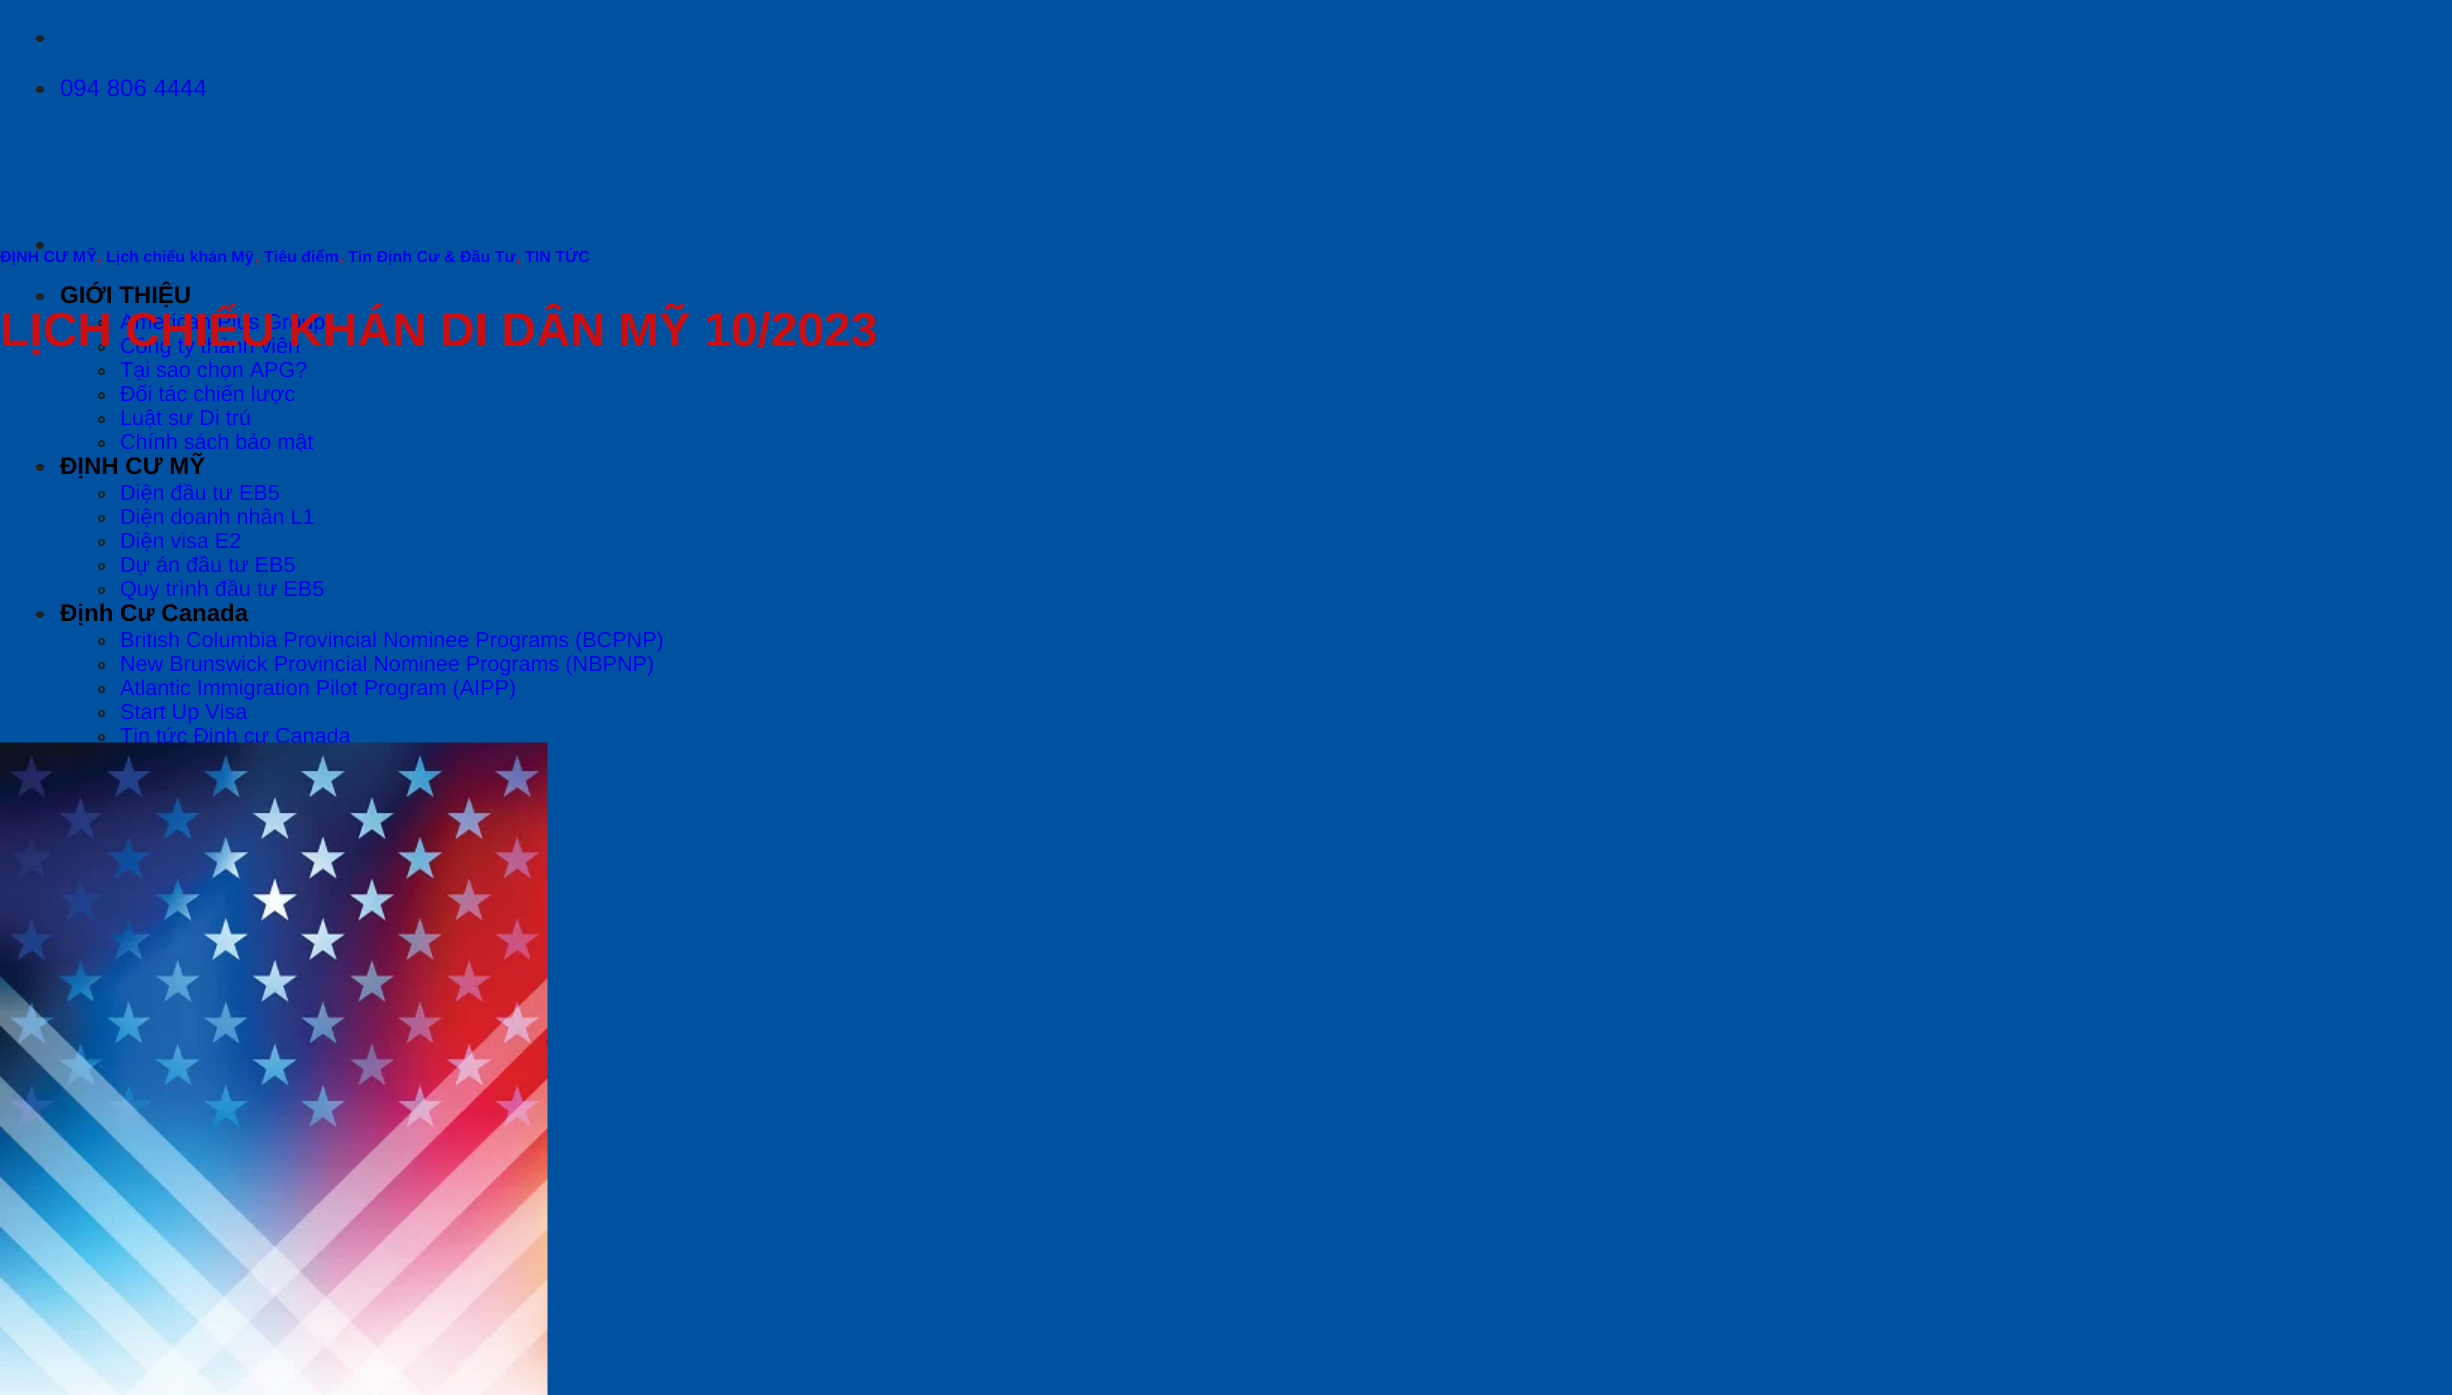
import math
import cairocffi as cairo

surface = cairo.ImageSurface(cairo.FORMAT_RGB24, 2452, 1395)
ctx = cairo.Context(surface)
options = cairo.FontOptions()
options.set_hint_metrics(cairo.HINT_METRICS_OFF)
options.set_hint_style(cairo.HINT_STYLE_NONE)
ctx.set_font_options(options)
ctx.set_miter_limit(4)


def rgb(r, g, b):
    ctx.set_source_rgb(r / 255, g / 255, b / 255)


def face(family, size, italic, bold):
    ctx.select_font_face(family, cairo.FONT_SLANT_ITALIC if italic else cairo.FONT_SLANT_NORMAL, cairo.FONT_WEIGHT_BOLD if bold else cairo.FONT_WEIGHT_NORMAL)
    ctx.set_font_size(size)


def label(x, y, s):
    ctx.move_to(x, y)
    ctx.show_text(s)


def rrect(x, y, w, h, r):
    ctx.new_sub_path()
    for i, (u, v) in enumerate([(x + w - r, y + h - r), (x + r, y + h - r), (x + r, y + r), (x + w - r, y + r)]):
        ctx.arc(u, v, r, i * math.pi / 2, (i + 1) * math.pi / 2)
    ctx.close_path()


def image(path, x, y, w, h):
    ctx.save()
    ctx.set_source_surface(cairo.ImageSurface.create_from_png(path), x, y)
    ctx.rectangle(x, y, w, h)
    ctx.fill()
    ctx.restore()


rgb(0, 82, 161)
ctx.paint()
rgb(33, 33, 33)
rrect(36, 35, 8, 7, 3.5)
ctx.fill()
rrect(36, 86, 8, 7, 3.5)
ctx.fill()
face('Liberation Sans', 24, 0, 0)
rgb(0, 0, 238)
label(60, 96, '094 806 4444')
rgb(33, 33, 33)
rrect(36, 242, 8, 7, 3.5)
ctx.fill()
rrect(36, 293, 8, 7, 3.5)
ctx.fill()
face('Liberation Sans', 24, 0, 1)
rgb(0, 0, 0)
label(60, 303, 'GIỚI THIỆU')
ctx.new_path()
ctx.arc(101.5, 323.5, 2.5, 0, 2 * math.pi)
rgb(33, 33, 33)
ctx.stroke()
face('Liberation Sans', 21.6, 0, 0)
rgb(0, 0, 238)
label(120, 329, 'American Plus Group')
ctx.new_path()
ctx.arc(101.5, 347.5, 2.5, 0, 2 * math.pi)
rgb(33, 33, 33)
ctx.stroke()
rgb(0, 0, 238)
label(120, 353, 'Công ty thành viên')
ctx.new_path()
ctx.arc(101.5, 371.5, 2.5, 0, 2 * math.pi)
rgb(33, 33, 33)
ctx.stroke()
rgb(0, 0, 238)
label(120, 377, 'Tại sao chọn APG?')
ctx.new_path()
ctx.arc(101.5, 395.5, 2.5, 0, 2 * math.pi)
rgb(33, 33, 33)
ctx.stroke()
rgb(0, 0, 238)
label(120, 401, 'Đối tác chiến lược')
ctx.new_path()
ctx.arc(101.5, 419.5, 2.5, 0, 2 * math.pi)
rgb(33, 33, 33)
ctx.stroke()
rgb(0, 0, 238)
label(120, 425, 'Luật sư Di trú')
ctx.new_path()
ctx.arc(101.5, 443.5, 2.5, 0, 2 * math.pi)
rgb(33, 33, 33)
ctx.stroke()
rgb(0, 0, 238)
label(120, 449, 'Chính sách bảo mật')
rgb(33, 33, 33)
rrect(36, 464, 8, 7, 3.5)
ctx.fill()
face('Liberation Sans', 24, 0, 1)
rgb(0, 0, 0)
label(60, 474, 'ĐỊNH CƯ MỸ')
ctx.new_path()
ctx.arc(101.5, 494.5, 2.5, 0, 2 * math.pi)
rgb(33, 33, 33)
ctx.stroke()
face('Liberation Sans', 21.6, 0, 0)
rgb(0, 0, 238)
label(120, 500, 'Diện đầu tư EB5')
ctx.new_path()
ctx.arc(101.5, 518.5, 2.5, 0, 2 * math.pi)
rgb(33, 33, 33)
ctx.stroke()
rgb(0, 0, 238)
label(120, 524, 'Diện doanh nhân L1')
ctx.new_path()
ctx.arc(101.5, 542.5, 2.5, 0, 2 * math.pi)
rgb(33, 33, 33)
ctx.stroke()
rgb(0, 0, 238)
label(120, 548, 'Diện visa E2')
ctx.new_path()
ctx.arc(101.5, 566.5, 2.5, 0, 2 * math.pi)
rgb(33, 33, 33)
ctx.stroke()
rgb(0, 0, 238)
label(120, 572, 'Dự án đầu tư EB5')
ctx.new_path()
ctx.arc(101.5, 590.5, 2.5, 0, 2 * math.pi)
rgb(33, 33, 33)
ctx.stroke()
rgb(0, 0, 238)
label(120, 596, 'Quy trình đầu tư EB5')
rgb(33, 33, 33)
rrect(36, 611, 8, 7, 3.5)
ctx.fill()
face('Liberation Sans', 24, 0, 1)
rgb(0, 0, 0)
label(60, 621, 'Định Cư Canada')
ctx.new_path()
ctx.arc(101.5, 641.5, 2.5, 0, 2 * math.pi)
rgb(33, 33, 33)
ctx.stroke()
face('Liberation Sans', 21.6, 0, 0)
rgb(0, 0, 238)
label(120, 647, 'British Columbia Provincial Nominee Programs (BCPNP)')
ctx.new_path()
ctx.arc(101.5, 665.5, 2.5, 0, 2 * math.pi)
rgb(33, 33, 33)
ctx.stroke()
rgb(0, 0, 238)
label(120, 671, 'New Brunswick Provincial Nominee Programs (NBPNP)')
ctx.new_path()
ctx.arc(101.5, 689.5, 2.5, 0, 2 * math.pi)
rgb(33, 33, 33)
ctx.stroke()
rgb(0, 0, 238)
label(120, 695, 'Atlantic Immigration Pilot Program (AIPP)')
ctx.new_path()
ctx.arc(101.5, 713.5, 2.5, 0, 2 * math.pi)
rgb(33, 33, 33)
ctx.stroke()
rgb(0, 0, 238)
label(120, 719, 'Start Up Visa')
ctx.new_path()
ctx.arc(101.5, 737.5, 2.5, 0, 2 * math.pi)
rgb(33, 33, 33)
ctx.stroke()
rgb(0, 0, 238)
label(120, 743, 'Tin tức Định cư Canada')
face('Liberation Sans', 16, 0, 1)
label(0, 262, 'ĐỊNH CƯ MỸ')
rgb(205, 14, 17)
label(97, 262, ',')
rgb(0, 0, 238)
label(106, 262, 'Lịch chiếu khán Mỹ')
rgb(205, 14, 17)
label(255, 262, ',')
rgb(0, 0, 238)
label(264, 262, 'Tiêu điểm')
rgb(205, 14, 17)
label(339, 262, ',')
rgb(0, 0, 238)
label(348, 262, 'Tin Định Cư & Đầu Tư')
rgb(205, 14, 17)
label(516, 262, ',')
rgb(0, 0, 238)
label(525, 262, 'TIN TỨC')
face('Liberation Sans', 48, 0, 1)
rgb(205, 14, 17)
label(0, 346, 'LỊCH CHIẾU KHÁN DI DÂN MỸ 10/2023')
image('image0.png', 0, 742, 548, 653)
surface.write_to_png('render.png')
